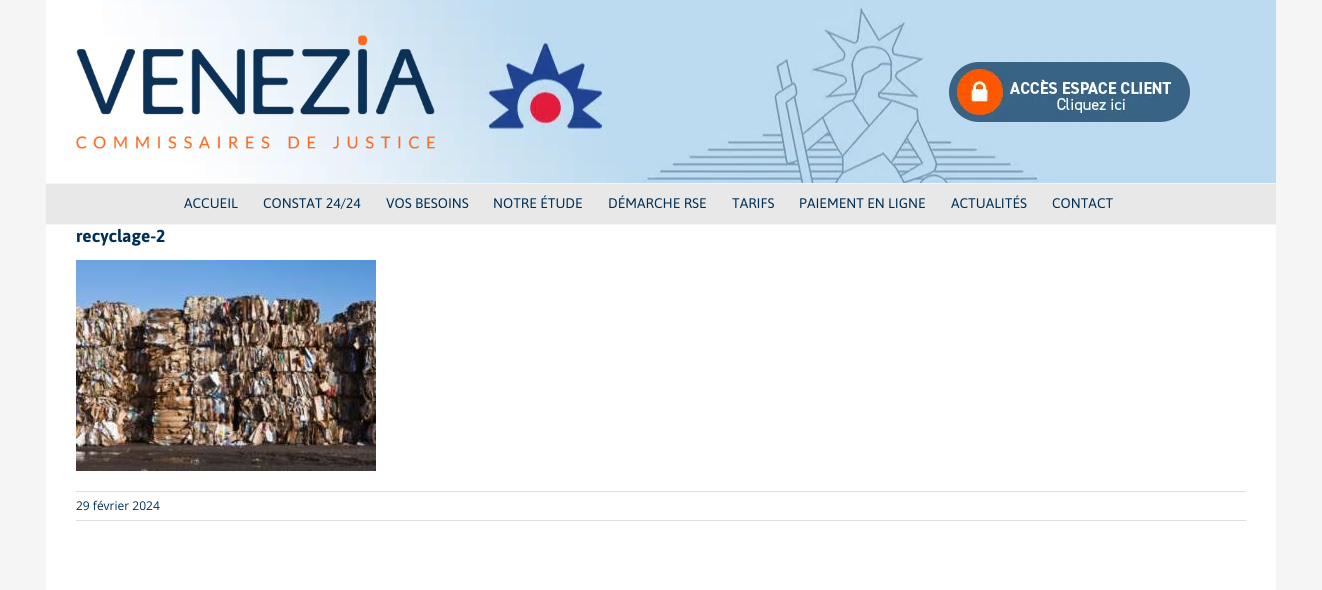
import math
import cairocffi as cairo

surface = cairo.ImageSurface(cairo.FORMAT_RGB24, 1322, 590)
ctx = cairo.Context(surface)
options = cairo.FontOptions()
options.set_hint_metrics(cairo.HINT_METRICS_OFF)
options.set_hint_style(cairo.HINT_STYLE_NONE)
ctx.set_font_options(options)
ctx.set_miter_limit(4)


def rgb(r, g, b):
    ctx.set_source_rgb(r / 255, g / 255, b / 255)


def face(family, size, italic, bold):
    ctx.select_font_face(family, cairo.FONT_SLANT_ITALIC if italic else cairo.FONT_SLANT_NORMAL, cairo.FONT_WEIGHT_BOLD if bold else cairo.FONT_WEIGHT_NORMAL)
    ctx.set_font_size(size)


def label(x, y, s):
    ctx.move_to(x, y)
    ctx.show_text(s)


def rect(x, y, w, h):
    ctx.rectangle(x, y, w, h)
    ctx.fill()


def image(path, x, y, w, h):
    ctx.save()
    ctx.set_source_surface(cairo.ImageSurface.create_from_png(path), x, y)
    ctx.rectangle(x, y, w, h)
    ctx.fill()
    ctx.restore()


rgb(245, 245, 245)
ctx.paint()
rgb(255, 255, 255)
rect(46, 0, 56, 183)
image('image0.png', 102, 0, 1174, 183)
image('image1.png', 76, 35, 359, 114)
image('image2.png', 949, 62, 241, 60)
rgb(232, 232, 232)
rect(46, 184, 1230, 40)
face('Jaldi', 16, 0, 0)
rgb(0, 48, 87)
label(184, 208, 'ACCUEIL')
label(263, 208, 'CONSTAT 24/24')
label(386, 208, 'VOS BESOINS')
label(493, 208, 'NOTRE ÉTUDE')
label(608, 208, 'DÉMARCHE RSE')
label(732, 208, 'TARIFS')
label(799, 208, 'PAIEMENT EN LIGNE')
label(951, 208, 'ACTUALITÉS')
label(1052, 208, 'CONTACT')
rgb(255, 255, 255)
rect(46, 225, 1230, 365)
face('Jaldi', 20, 0, 1)
rgb(0, 48, 87)
label(76, 242, 'recyclage-2')
image('image3.png', 76, 260, 300, 211)
rgb(224, 222, 222)
rect(76, 491, 1170, 1)
rect(76, 520, 1170, 1)
face('Open Sans', 12, 0, 0)
rgb(0, 48, 87)
label(76, 510, '29 février 2024')
surface.write_to_png('render.png')
